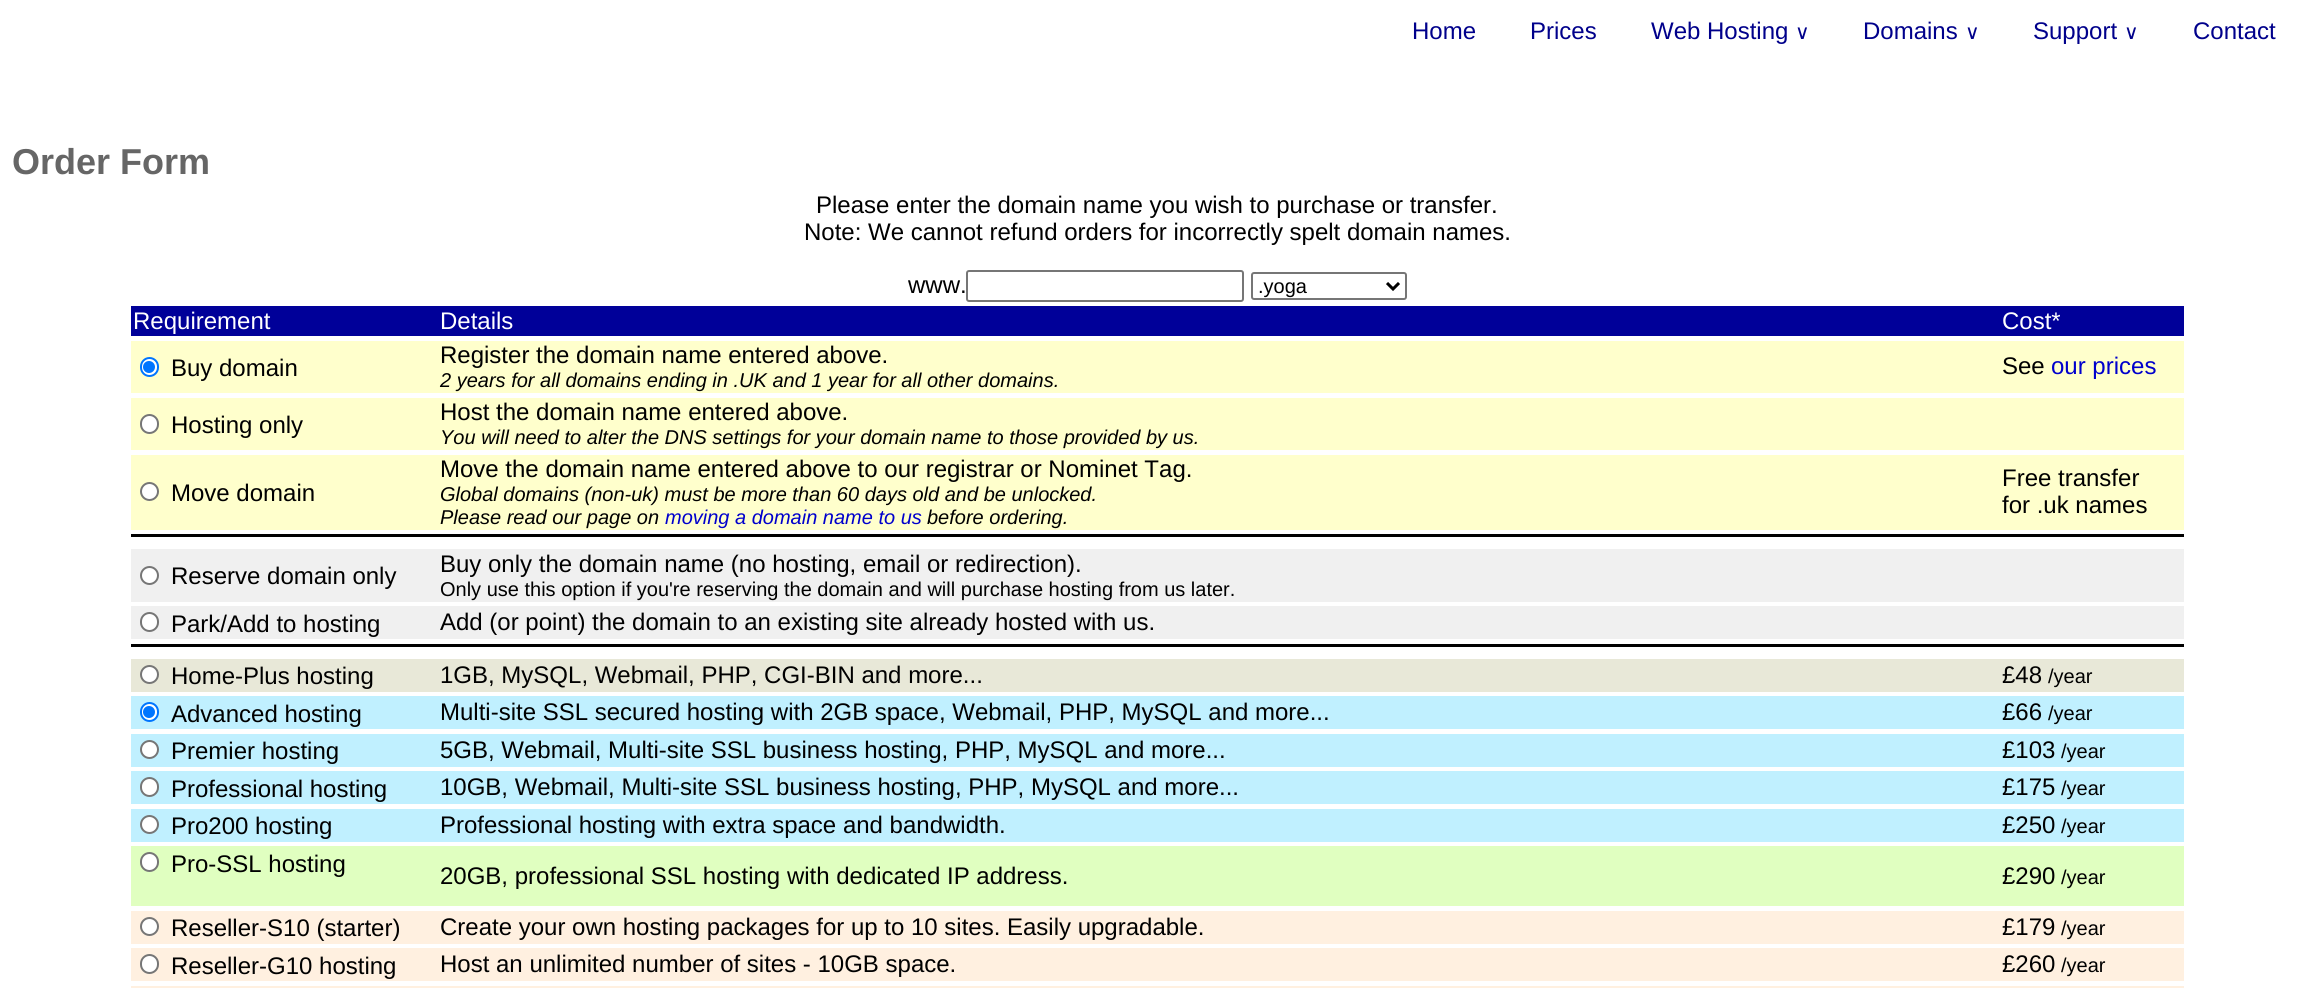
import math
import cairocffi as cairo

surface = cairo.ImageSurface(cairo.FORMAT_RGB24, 2314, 988)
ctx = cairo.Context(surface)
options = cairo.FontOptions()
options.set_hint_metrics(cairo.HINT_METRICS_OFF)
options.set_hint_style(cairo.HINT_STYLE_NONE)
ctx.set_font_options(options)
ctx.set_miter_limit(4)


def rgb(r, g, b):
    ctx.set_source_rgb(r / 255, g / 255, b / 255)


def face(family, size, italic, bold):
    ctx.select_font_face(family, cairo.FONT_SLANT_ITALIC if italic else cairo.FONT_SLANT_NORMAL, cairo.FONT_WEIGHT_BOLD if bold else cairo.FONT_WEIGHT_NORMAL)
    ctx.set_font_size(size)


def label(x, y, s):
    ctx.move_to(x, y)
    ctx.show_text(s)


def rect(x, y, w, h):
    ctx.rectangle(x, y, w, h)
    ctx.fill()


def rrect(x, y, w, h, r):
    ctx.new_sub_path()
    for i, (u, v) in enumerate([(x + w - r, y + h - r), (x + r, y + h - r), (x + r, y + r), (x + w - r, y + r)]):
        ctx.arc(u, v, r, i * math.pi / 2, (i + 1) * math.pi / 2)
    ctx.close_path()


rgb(255, 255, 255)
ctx.paint()
face('Liberation Sans', 24, 0, 0)
rgb(0, 0, 139)
label(1412, 39, 'Home')
label(1530, 39, 'Prices')
label(1651, 39, 'Web Hosting')
face('DejaVu Sans', 20, 0, 0)
label(1795, 39, '∨')
face('Liberation Sans', 24, 0, 0)
label(1863, 39, 'Domains')
face('DejaVu Sans', 20, 0, 0)
label(1965, 39, '∨')
face('Liberation Sans', 24, 0, 0)
label(2033, 39, 'Support')
face('DejaVu Sans', 20, 0, 0)
label(2124, 39, '∨')
face('Liberation Sans', 24, 0, 0)
label(2193, 39, 'Contact')
face('Liberation Sans', 36, 0, 1)
rgb(102, 102, 102)
label(12, 174, 'Order Form')
face('Liberation Sans', 24, 0, 0)
rgb(0, 0, 0)
label(816, 213, 'Please enter the domain name you wish to purchase or transfer.')
label(804, 240, 'Note: We cannot refund orders for incorrectly spelt domain names.')
label(908, 293, 'www.')
rrect(967, 271, 276, 30, 2)
rgb(118, 118, 118)
ctx.stroke()
rrect(1252, 273, 154, 26, 2)
ctx.stroke()
ctx.new_path()
ctx.move_to(1387, 283)
ctx.line_to(1393, 289)
ctx.line_to(1399, 283)
rgb(0, 0, 0)
ctx.set_line_width(3)
ctx.stroke()
face('Liberation Sans', 20, 0, 0)
label(1258, 293, '.yoga')
rgb(0, 0, 153)
rect(131, 306, 2053, 30)
face('Liberation Sans', 24, 0, 0)
rgb(255, 255, 255)
label(133, 329, 'Requirement')
label(440, 329, 'Details')
label(2002, 329, 'Cost*')
rgb(255, 255, 204)
rect(131, 341, 2053, 52)
rgb(255, 255, 255)
rrect(141, 358, 17, 18, 8.5)
ctx.fill_preserve()
rgb(0, 117, 255)
ctx.set_line_width(2)
ctx.stroke()
ctx.arc(149, 367, 6, 0, 2 * math.pi)
ctx.fill()
rgb(0, 0, 0)
label(171, 376, 'Buy domain')
label(440, 363, 'Register the domain name entered above.')
face('Liberation Sans', 20, 1, 0)
label(440, 387, '2 years for all domains ending in .UK and 1 year for all other domains.')
face('Liberation Sans', 24, 0, 0)
label(2002, 374, 'See')
rgb(0, 0, 204)
label(2051, 374, 'our prices')
rgb(255, 255, 204)
rect(131, 398, 2053, 52)
rgb(255, 255, 255)
rrect(141, 415, 17, 18, 8.5)
ctx.fill_preserve()
rgb(118, 118, 118)
ctx.stroke()
rgb(0, 0, 0)
label(171, 433, 'Hosting only')
label(440, 420, 'Host the domain name entered above.')
face('Liberation Sans', 20, 1, 0)
label(440, 444, 'You will need to alter the DNS settings for your domain name to those provided by us.')
rgb(255, 255, 204)
rect(131, 455, 2053, 75)
rgb(255, 255, 255)
ctx.new_path()
ctx.arc(149.5, 491.5, 8.5, 0, 2 * math.pi)
ctx.fill_preserve()
rgb(118, 118, 118)
ctx.stroke()
face('Liberation Sans', 24, 0, 0)
rgb(0, 0, 0)
label(171, 501, 'Move domain')
label(440, 477, 'Move the domain name entered above to our registrar or Nominet Tag.')
face('Liberation Sans', 20, 1, 0)
label(440, 501, 'Global domains (non-uk) must be more than 60 days old and be unlocked.')
label(440, 524, 'Please read our page on')
rgb(0, 0, 204)
label(665, 524, 'moving a domain name to us')
rgb(0, 0, 0)
label(927, 524, 'before ordering.')
face('Liberation Sans', 24, 0, 0)
label(2002, 486, 'Free transfer')
label(2002, 513, 'for .uk names')
rect(131, 534, 2053, 3)
rgb(240, 240, 240)
rect(131, 549, 2053, 53)
rgb(255, 255, 255)
ctx.new_path()
ctx.arc(149.5, 575.5, 8.5, 0, 2 * math.pi)
ctx.fill_preserve()
rgb(118, 118, 118)
ctx.stroke()
rgb(0, 0, 0)
label(171, 584, 'Reserve domain only')
label(440, 572, 'Buy only the domain name (no hosting, email or redirection).')
face('Liberation Sans', 20, 0, 0)
label(440, 596, 'Only use this option if you\'re reserving the domain and will purchase hosting from us later.')
rgb(240, 240, 240)
rect(131, 606, 2053, 33)
rgb(255, 255, 255)
rrect(141, 613, 17, 18, 8.5)
ctx.fill_preserve()
rgb(118, 118, 118)
ctx.stroke()
face('Liberation Sans', 24, 0, 0)
rgb(0, 0, 0)
label(171, 632, 'Park/Add to hosting')
label(440, 630, 'Add (or point) the domain to an existing site already hosted with us.')
rect(131, 644, 2053, 3)
rgb(232, 232, 216)
rect(131, 659, 2053, 33)
rgb(255, 255, 255)
ctx.new_path()
ctx.arc(149.5, 674.5, 8.5, 0, 2 * math.pi)
ctx.fill_preserve()
rgb(118, 118, 118)
ctx.stroke()
rgb(0, 0, 0)
label(171, 684, 'Home-Plus hosting')
label(440, 683, '1GB, MySQL, Webmail, PHP, CGI-BIN and more...')
label(2002, 683, '£48')
face('Liberation Sans', 20, 0, 0)
label(2048, 683, '/year')
rgb(192, 240, 255)
rect(131, 696, 2053, 33)
rgb(255, 255, 255)
rrect(141, 703, 17, 18, 8.5)
ctx.fill_preserve()
rgb(0, 117, 255)
ctx.stroke()
ctx.arc(149, 712, 6, 0, 2 * math.pi)
ctx.fill()
face('Liberation Sans', 24, 0, 0)
rgb(0, 0, 0)
label(171, 722, 'Advanced hosting')
label(440, 720, 'Multi-site SSL secured hosting with 2GB space, Webmail, PHP, MySQL and more...')
label(2002, 720, '£66')
face('Liberation Sans', 20, 0, 0)
label(2048, 720, '/year')
rgb(192, 240, 255)
rect(131, 734, 2053, 33)
rgb(255, 255, 255)
ctx.new_path()
ctx.arc(149.5, 749.5, 8.5, 0, 2 * math.pi)
ctx.fill_preserve()
rgb(118, 118, 118)
ctx.stroke()
face('Liberation Sans', 24, 0, 0)
rgb(0, 0, 0)
label(171, 759, 'Premier hosting')
label(440, 758, '5GB, Webmail, Multi-site SSL business hosting, PHP, MySQL and more...')
label(2002, 758, '£103')
face('Liberation Sans', 20, 0, 0)
label(2061, 758, '/year')
rgb(192, 240, 255)
rect(131, 771, 2053, 33)
rgb(255, 255, 255)
rrect(141, 778, 17, 18, 8.5)
ctx.fill_preserve()
rgb(118, 118, 118)
ctx.stroke()
face('Liberation Sans', 24, 0, 0)
rgb(0, 0, 0)
label(171, 797, 'Professional hosting')
label(440, 795, '10GB, Webmail, Multi-site SSL business hosting, PHP, MySQL and more...')
label(2002, 795, '£175')
face('Liberation Sans', 20, 0, 0)
label(2061, 795, '/year')
rgb(192, 240, 255)
rect(131, 809, 2053, 33)
rgb(255, 255, 255)
ctx.new_path()
ctx.arc(149.5, 824.5, 8.5, 0, 2 * math.pi)
ctx.fill_preserve()
rgb(118, 118, 118)
ctx.stroke()
face('Liberation Sans', 24, 0, 0)
rgb(0, 0, 0)
label(171, 834, 'Pro200 hosting')
label(440, 833, 'Professional hosting with extra space and bandwidth.')
label(2002, 833, '£250')
face('Liberation Sans', 20, 0, 0)
label(2061, 833, '/year')
rgb(224, 255, 192)
rect(131, 846, 2053, 60)
rgb(255, 255, 255)
rrect(141, 853, 17, 18, 8.5)
ctx.fill_preserve()
rgb(118, 118, 118)
ctx.stroke()
face('Liberation Sans', 24, 0, 0)
rgb(0, 0, 0)
label(171, 872, 'Pro-SSL hosting')
label(440, 884, '20GB, professional SSL hosting with dedicated IP address.')
label(2002, 884, '£290')
face('Liberation Sans', 20, 0, 0)
label(2061, 884, '/year')
rgb(255, 240, 224)
rect(131, 911, 2053, 33)
rgb(255, 255, 255)
ctx.new_path()
ctx.arc(149.5, 926.5, 8.5, 0, 2 * math.pi)
ctx.fill_preserve()
rgb(118, 118, 118)
ctx.stroke()
face('Liberation Sans', 24, 0, 0)
rgb(0, 0, 0)
label(171, 936, 'Reseller-S10 (starter)')
label(440, 935, 'Create your own hosting packages for up to 10 sites. Easily upgradable.')
label(2002, 935, '£179')
face('Liberation Sans', 20, 0, 0)
label(2061, 935, '/year')
rgb(255, 240, 224)
rect(131, 948, 2053, 33)
rgb(255, 255, 255)
rrect(141, 955, 17, 18, 8.5)
ctx.fill_preserve()
rgb(118, 118, 118)
ctx.stroke()
face('Liberation Sans', 24, 0, 0)
rgb(0, 0, 0)
label(171, 974, 'Reseller-G10 hosting')
label(440, 972, 'Host an unlimited number of sites - 10GB space.')
label(2002, 972, '£260')
face('Liberation Sans', 20, 0, 0)
label(2061, 972, '/year')
rgb(255, 240, 224)
rect(131, 986, 2053, 2)
surface.write_to_png('render.png')
